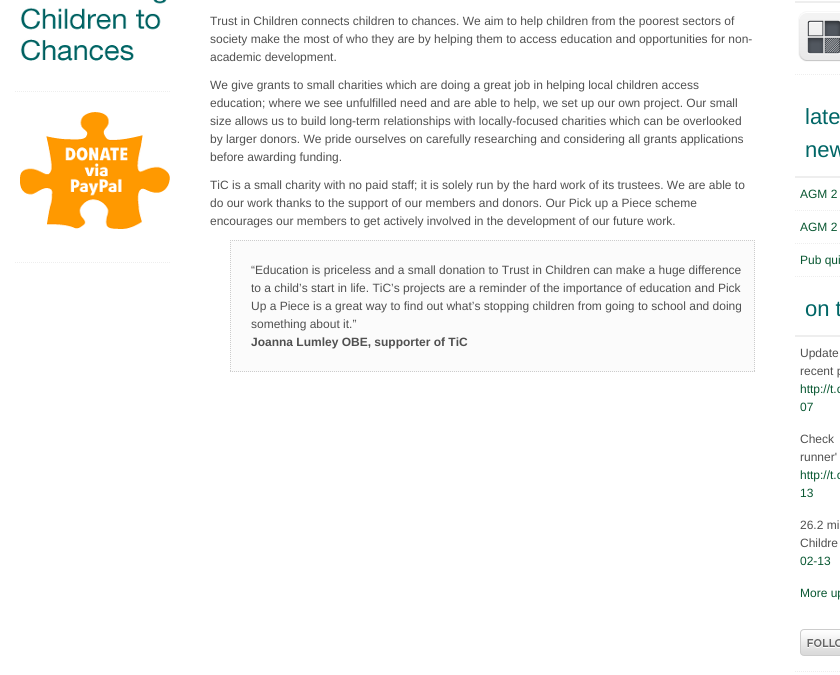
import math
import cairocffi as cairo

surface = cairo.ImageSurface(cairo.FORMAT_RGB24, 840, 675)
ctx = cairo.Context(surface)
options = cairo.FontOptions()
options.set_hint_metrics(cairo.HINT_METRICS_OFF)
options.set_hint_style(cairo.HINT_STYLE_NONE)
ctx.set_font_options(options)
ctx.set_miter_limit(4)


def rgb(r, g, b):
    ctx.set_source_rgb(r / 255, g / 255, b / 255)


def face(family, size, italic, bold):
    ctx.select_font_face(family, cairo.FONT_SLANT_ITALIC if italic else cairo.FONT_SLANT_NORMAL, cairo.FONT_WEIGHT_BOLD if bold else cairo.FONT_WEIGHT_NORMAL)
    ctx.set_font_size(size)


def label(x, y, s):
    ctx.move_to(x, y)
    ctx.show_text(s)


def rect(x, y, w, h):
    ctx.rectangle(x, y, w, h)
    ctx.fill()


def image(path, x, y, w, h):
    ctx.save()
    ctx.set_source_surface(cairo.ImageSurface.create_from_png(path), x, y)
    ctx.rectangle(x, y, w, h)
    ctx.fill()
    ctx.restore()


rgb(255, 255, 255)
ctx.paint()
ctx.new_path()
ctx.move_to(15, 91.5)
ctx.line_to(170, 91.5)
rgb(238, 238, 238)
ctx.set_line_width(1)
ctx.set_dash([1, 1])
ctx.stroke()
image('image0.png', 20, 0, 147, 61)
ctx.new_path()
ctx.move_to(15, 262.5)
ctx.line_to(170, 262.5)
ctx.stroke()
image('image1.png', 20, 112, 150, 117)
face('Liberation Sans', 12, 0, 0)
rgb(80, 80, 80)
label(210, 25, 'Trust in Children connects children to chances. We aim to help children from the poorest sectors of')
label(210, 43, 'society make the most of who they are by helping them to access education and opportunities for non-')
label(210, 61, 'academic development.')
label(210, 89, 'We give grants to small charities which are doing a great job in helping local children access')
label(210, 107, 'education; where we see unfulfilled need and are able to help, we set up our own project. Our small')
label(210, 125, 'size allows us to build long-term relationships with locally-focused charities which can be overlooked')
label(210, 143, 'by larger donors. We pride ourselves on carefully researching and considering all grants applications')
label(210, 161, 'before awarding funding.')
label(210, 189, 'TiC is a small charity with no paid staff; it is solely run by the hard work of its trustees. We are able to')
label(210, 207, 'do our work thanks to the support of our members and donors. Our Pick up a Piece scheme')
label(210, 225, 'encourages our members to get actively involved in the development of our future work.')
rgb(251, 251, 251)
rect(230, 240, 525, 132)
ctx.new_path()
ctx.move_to(230, 240.5)
ctx.line_to(755, 240.5)
rgb(204, 204, 204)
ctx.stroke()
ctx.new_path()
ctx.move_to(754.5, 240)
ctx.line_to(754.5, 372)
ctx.stroke()
ctx.new_path()
ctx.move_to(230, 371.5)
ctx.line_to(755, 371.5)
ctx.stroke()
ctx.new_path()
ctx.move_to(230.5, 240)
ctx.line_to(230.5, 372)
ctx.stroke()
rgb(80, 80, 80)
label(251, 274, '“Education is priceless and a small donation to Trust in Children can make a huge difference')
label(251, 292, 'to a child’s start in life. TiC’s projects are a reminder of the importance of education and Pick')
label(251, 310, 'Up a Piece is a great way to find out what’s stopping children from going to school and doing')
label(251, 328, 'something about it.”')
face('Liberation Sans', 12, 0, 1)
label(251, 346, 'Joanna Lumley OBE, supporter of TiC')
rgb(238, 238, 238)
rect(795, 1, 45, 2)
ctx.new_path()
ctx.move_to(795, 74.5)
ctx.line_to(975, 74.5)
ctx.stroke()
image('image2.png', 798, 11, 42, 51)
rect(795, 176, 45, 2)
face('Liberation Sans', 22, 0, 0)
rgb(0, 102, 102)
label(805, 124, 'late')
label(805, 157, 'new')
ctx.new_path()
ctx.move_to(795, 210.5)
ctx.line_to(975, 210.5)
ctx.move_to(795, 243.5)
ctx.line_to(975, 243.5)
rgb(238, 238, 238)
ctx.stroke()
face('Liberation Sans', 12, 0, 0)
rgb(8, 87, 49)
label(800, 198, 'AGM 2')
label(800, 231, 'AGM 2')
ctx.new_path()
ctx.move_to(795, 276.5)
ctx.line_to(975, 276.5)
rgb(238, 238, 238)
ctx.stroke()
rgb(8, 87, 49)
label(800, 264, 'Pub qui')
rgb(238, 238, 238)
rect(795, 335, 45, 2)
face('Liberation Sans', 22, 0, 0)
rgb(0, 102, 102)
label(805, 316, 'on t')
face('Liberation Sans', 12, 0, 0)
rgb(80, 80, 80)
label(800, 357, 'Update')
label(800, 375, 'recent p')
rgb(8, 87, 49)
label(800, 393, 'http://t.c')
label(800, 411, '07')
rgb(80, 80, 80)
label(800, 443, 'Check')
label(800, 461, 'runner\'')
rgb(8, 87, 49)
label(800, 479, 'http://t.c')
label(800, 497, '13')
rgb(80, 80, 80)
label(800, 529, '26.2 mi')
label(800, 547, 'Childre')
rgb(8, 87, 49)
label(800, 565, '02-13')
label(800, 597, 'More up')
ctx.new_path()
ctx.move_to(795, 671.5)
ctx.line_to(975, 671.5)
rgb(238, 238, 238)
ctx.stroke()
image('image3.png', 800, 629, 40, 27)
surface.write_to_png('render.png')
